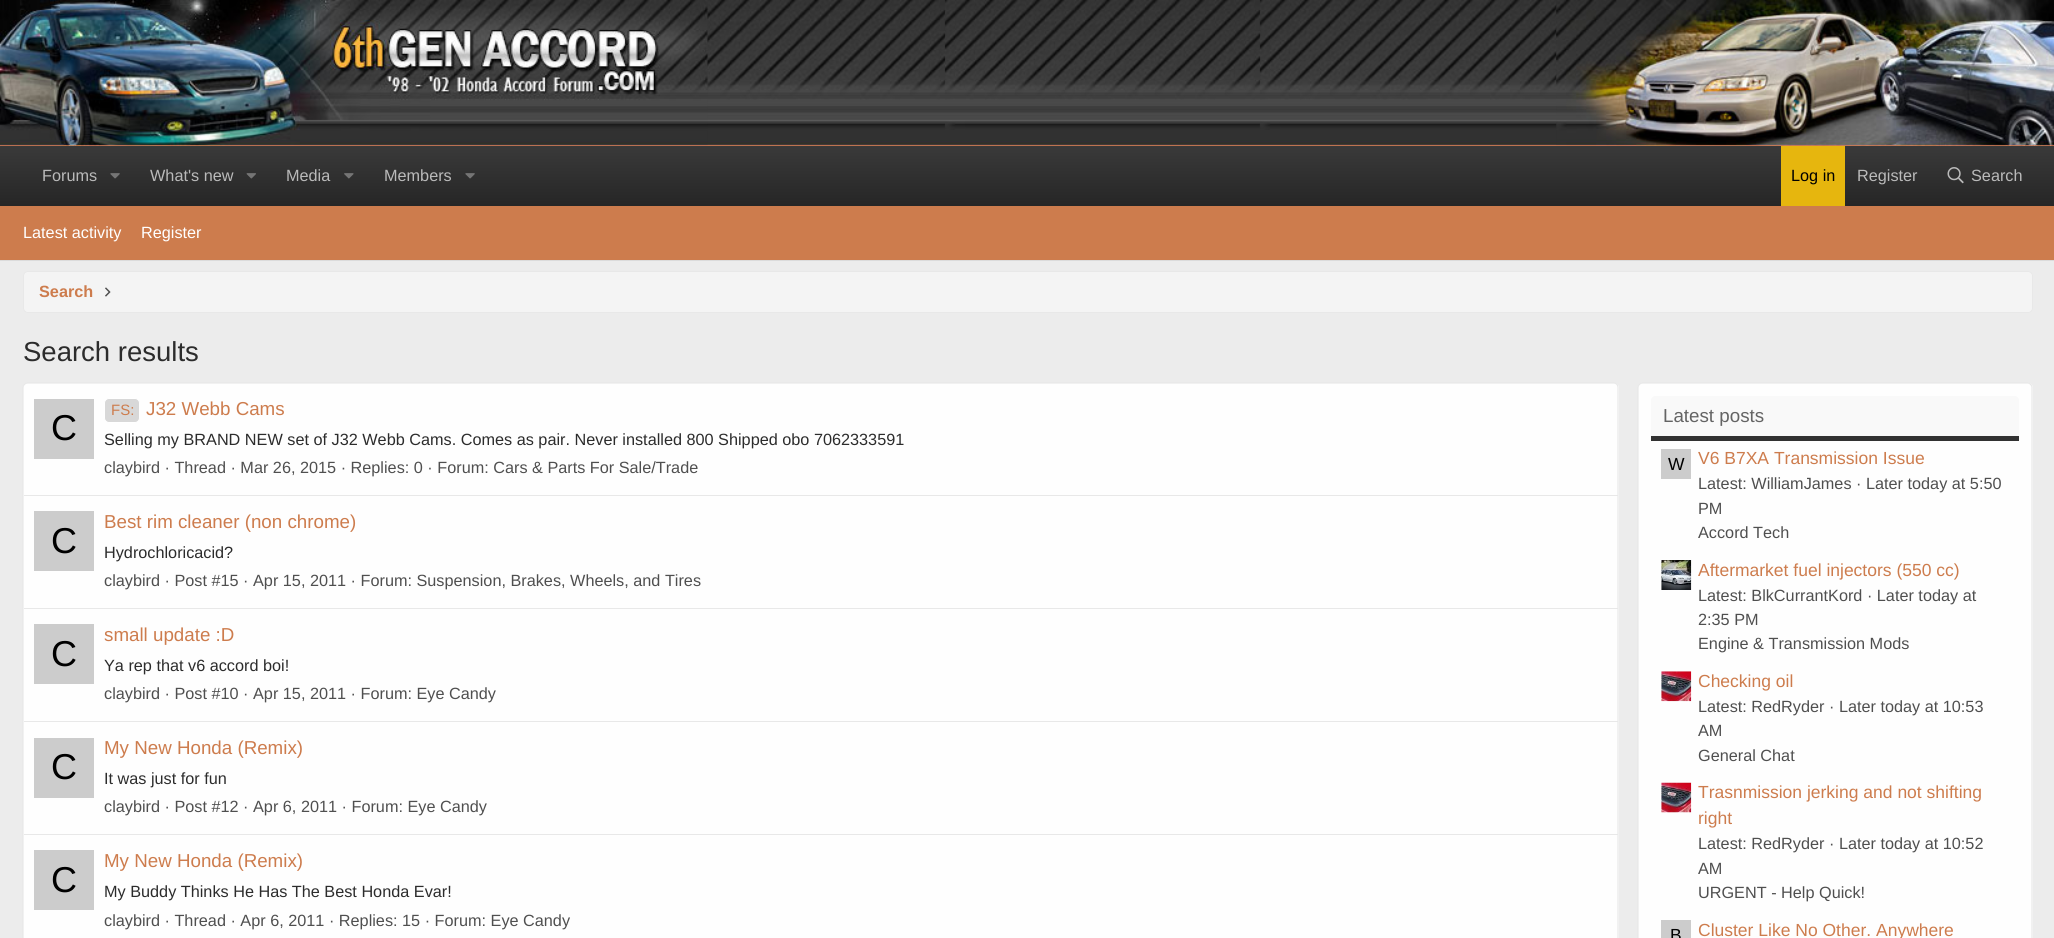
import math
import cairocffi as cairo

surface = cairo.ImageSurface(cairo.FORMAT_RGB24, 2054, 938)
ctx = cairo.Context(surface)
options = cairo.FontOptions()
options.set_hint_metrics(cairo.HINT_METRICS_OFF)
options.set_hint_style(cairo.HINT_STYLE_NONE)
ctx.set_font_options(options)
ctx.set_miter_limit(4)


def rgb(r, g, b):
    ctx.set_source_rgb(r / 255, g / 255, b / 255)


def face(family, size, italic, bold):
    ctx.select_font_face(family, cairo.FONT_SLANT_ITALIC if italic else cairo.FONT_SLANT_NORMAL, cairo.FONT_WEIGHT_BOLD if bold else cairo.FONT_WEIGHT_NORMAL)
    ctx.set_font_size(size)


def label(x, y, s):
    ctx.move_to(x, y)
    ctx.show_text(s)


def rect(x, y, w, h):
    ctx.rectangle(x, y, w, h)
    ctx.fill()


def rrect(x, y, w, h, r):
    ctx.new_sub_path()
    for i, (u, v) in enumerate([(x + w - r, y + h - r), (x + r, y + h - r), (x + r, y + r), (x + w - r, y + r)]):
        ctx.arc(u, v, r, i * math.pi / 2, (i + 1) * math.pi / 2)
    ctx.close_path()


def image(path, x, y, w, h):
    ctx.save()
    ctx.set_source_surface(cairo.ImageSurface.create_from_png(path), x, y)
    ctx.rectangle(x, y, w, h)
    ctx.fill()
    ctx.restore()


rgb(236, 236, 236)
ctx.paint()
image('image0.png', 707, 0, 850, 146)
image('image1.png', 0, 0, 708, 146)
image('image2.png', 1556, 0, 498, 146)
gradient = cairo.LinearGradient(1028, 146, 1028, 206)
gradient.add_color_stop_rgba(0, 0.227, 0.227, 0.227, 1)
gradient.add_color_stop_rgba(1, 0.149, 0.149, 0.149, 1)
ctx.set_source(gradient)
rect(0, 146, 2054, 60)
face('Liberation Sans', 16.25, 0, 0)
rgb(186, 186, 186)
label(42, 181, 'Forums')
image('image3.png', 110, 173, 10, 6)
label(150, 181, 'What\'s new')
image('image4.png', 246, 173, 10, 6)
label(286, 181, 'Media')
image('image5.png', 344, 173, 10, 6)
label(384, 181, 'Members')
image('image3.png', 465, 173, 10, 6)
rgb(230, 182, 14)
rect(1781, 146, 64, 60)
rgb(0, 0, 0)
label(1791, 181, 'Log in')
rgb(186, 186, 186)
label(1857, 181, 'Register')
image('image6.png', 1947, 167, 17, 17)
label(1971, 181, 'Search')
rgb(205, 124, 77)
rect(0, 206, 2054, 54)
rgb(219, 219, 219)
rect(0, 260, 2054, 1)
rgb(255, 255, 255)
label(23, 238, 'Latest activity')
label(141, 238, 'Register')
rgb(244, 244, 244)
rrect(23.5, 271.5, 2009, 41, 4.5)
ctx.fill_preserve()
rgb(232, 232, 232)
ctx.set_line_width(1)
ctx.stroke()
face('Liberation Sans', 16.25, 0, 1)
rgb(205, 124, 77)
label(39, 297, 'Search')
image('image7.png', 105, 287, 6, 10)
face('Liberation Sans', 27.5, 0, 0)
rgb(44, 44, 44)
label(23, 361, 'Search results')
rgb(254, 254, 254)
rrect(23, 383, 1596, 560, 5)
ctx.fill()
ctx.new_path()
ctx.move_to(24.5, 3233)
ctx.curve_to(23.5, 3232.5, 23, 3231, 23, 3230)
ctx.line_to(23, 387.5)
ctx.curve_to(23, 386.5, 23.5, 385, 24.5, 384.5)
ctx.curve_to(25, 383.5, 26.5, 383, 27.5, 383)
ctx.line_to(1614, 383)
ctx.curve_to(1615, 383, 1616, 383.5, 1617, 384.5)
ctx.curve_to(1617.5, 385, 1618, 386.5, 1618, 387.5)
ctx.line_to(1618, 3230)
ctx.curve_to(1618, 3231, 1617.5, 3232.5, 1617, 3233)
rgb(232, 232, 232)
ctx.set_line_width(1.2)
ctx.stroke()
rgb(204, 204, 204)
rect(34, 399, 60, 60)
face('Liberation Sans', 36, 0, 0)
rgb(0, 0, 0)
label(51, 440, 'C')
rgb(216, 216, 216)
rrect(104.5, 398.5, 35, 24, 4.5)
ctx.fill_preserve()
rgb(255, 255, 255)
ctx.set_line_width(1)
ctx.stroke()
face('Liberation Sans', 15, 0, 0)
rgb(205, 124, 77)
label(111, 415, 'FS:')
face('Liberation Sans', 18.75, 0, 0)
label(146, 415, 'J32 Webb Cams')
face('Liberation Sans', 16.25, 0, 0)
rgb(44, 44, 44)
label(104, 445, 'Selling my BRAND NEW set of J32 Webb Cams. Comes as pair. Never installed 800 Shipped obo 7062333591')
rgb(79, 79, 79)
label(104, 473, 'claybird · Thread · Mar 26, 2015 · Replies: 0 · Forum: Cars & Parts For Sale/Trade')
rgb(232, 232, 232)
rect(24, 495, 1594, 1)
rgb(204, 204, 204)
rect(34, 511, 60, 60)
face('Liberation Sans', 36, 0, 0)
rgb(0, 0, 0)
label(51, 553, 'C')
face('Liberation Sans', 18.75, 0, 0)
rgb(205, 124, 77)
label(104, 528, 'Best rim cleaner (non chrome)')
face('Liberation Sans', 16.25, 0, 0)
rgb(44, 44, 44)
label(104, 558, 'Hydrochloricacid?')
rgb(79, 79, 79)
label(104, 586, 'claybird · Post #15 · Apr 15, 2011 · Forum: Suspension, Brakes, Wheels, and Tires')
rgb(232, 232, 232)
rect(24, 608, 1594, 1)
rgb(204, 204, 204)
rect(34, 624, 60, 60)
face('Liberation Sans', 36, 0, 0)
rgb(0, 0, 0)
label(51, 666, 'C')
face('Liberation Sans', 18.75, 0, 0)
rgb(205, 124, 77)
label(104, 641, 'small update :D')
face('Liberation Sans', 16.25, 0, 0)
rgb(44, 44, 44)
label(104, 671, 'Ya rep that v6 accord boi!')
rgb(79, 79, 79)
label(104, 699, 'claybird · Post #10 · Apr 15, 2011 · Forum: Eye Candy')
rgb(232, 232, 232)
rect(24, 721, 1594, 1)
rgb(204, 204, 204)
rect(34, 738, 60, 60)
face('Liberation Sans', 36, 0, 0)
rgb(0, 0, 0)
label(51, 779, 'C')
face('Liberation Sans', 18.75, 0, 0)
rgb(205, 124, 77)
label(104, 754, 'My New Honda (Remix)')
face('Liberation Sans', 16.25, 0, 0)
rgb(44, 44, 44)
label(104, 784, 'It was just for fun')
rgb(79, 79, 79)
label(104, 812, 'claybird · Post #12 · Apr 6, 2011 · Forum: Eye Candy')
rgb(232, 232, 232)
rect(24, 834, 1594, 1)
rgb(204, 204, 204)
rect(34, 850, 60, 60)
face('Liberation Sans', 36, 0, 0)
rgb(0, 0, 0)
label(51, 892, 'C')
face('Liberation Sans', 18.75, 0, 0)
rgb(205, 124, 77)
label(104, 867, 'My New Honda (Remix)')
face('Liberation Sans', 16.25, 0, 0)
rgb(44, 44, 44)
label(104, 897, 'My Buddy Thinks He Has The Best Honda Evar!')
rgb(79, 79, 79)
label(104, 926, 'claybird · Thread · Apr 6, 2011 · Replies: 15 · Forum: Eye Candy')
rgb(254, 254, 254)
rrect(1638, 383, 395, 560, 5)
ctx.fill()
ctx.new_path()
ctx.move_to(1639.5, 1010.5)
ctx.curve_to(1638.5, 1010, 1638, 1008.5, 1638, 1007.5)
ctx.line_to(1638, 387.5)
ctx.curve_to(1638, 386.5, 1638.5, 385, 1639.5, 384.5)
ctx.curve_to(1640, 383.5, 1641.5, 383, 1642.5, 383)
ctx.line_to(2027.5, 383)
ctx.curve_to(2028.5, 383, 2030, 383.5, 2030.5, 384.5)
ctx.curve_to(2031.5, 385, 2032, 386.5, 2032, 387.5)
ctx.line_to(2032, 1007.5)
ctx.curve_to(2032, 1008.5, 2031.5, 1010, 2030.5, 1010.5)
rgb(232, 232, 232)
ctx.set_line_width(1.2)
ctx.stroke()
rgb(249, 249, 249)
ctx.new_path()
ctx.move_to(1655, 396)
ctx.line_to(2015, 396)
ctx.curve_to(2017, 396, 2019, 398, 2019, 400)
ctx.line_to(2019, 441)
ctx.line_to(1651, 441)
ctx.line_to(1651, 400)
ctx.curve_to(1651, 398, 1653, 396, 1655, 396)
ctx.close_path()
ctx.fill()
rgb(50, 50, 50)
rect(1651, 436, 368, 5)
face('Liberation Sans', 18.75, 0, 0)
rgb(100, 100, 100)
label(1663, 422, 'Latest posts')
rgb(204, 204, 204)
rect(1661, 449, 30, 30)
face('Liberation Sans', 17.5, 0, 0)
rgb(0, 0, 0)
label(1668, 470, 'W')
rgb(205, 124, 77)
label(1698, 464, 'V6 B7XA Transmission Issue')
face('Liberation Sans', 16.25, 0, 0)
rgb(79, 79, 79)
label(1698, 489, 'Latest: WilliamJames · Later today at 5:50')
label(1698, 514, 'PM')
label(1698, 538, 'Accord Tech')
image('image8.png', 1661, 560, 31, 30)
face('Liberation Sans', 17.5, 0, 0)
rgb(205, 124, 77)
label(1698, 576, 'Aftermarket fuel injectors (550 cc)')
face('Liberation Sans', 16.25, 0, 0)
rgb(79, 79, 79)
label(1698, 601, 'Latest: BlkCurrantKord · Later today at')
label(1698, 625, '2:35 PM')
label(1698, 649, 'Engine & Transmission Mods')
image('image9.png', 1661, 671, 31, 31)
face('Liberation Sans', 17.5, 0, 0)
rgb(205, 124, 77)
label(1698, 687, 'Checking oil')
face('Liberation Sans', 16.25, 0, 0)
rgb(79, 79, 79)
label(1698, 712, 'Latest: RedRyder · Later today at 10:53')
label(1698, 736, 'AM')
label(1698, 761, 'General Chat')
image('image10.png', 1661, 782, 31, 31)
face('Liberation Sans', 17.5, 0, 0)
rgb(205, 124, 77)
label(1698, 798, 'Trasnmission jerking and not shifting')
label(1698, 824, 'right')
face('Liberation Sans', 16.25, 0, 0)
rgb(79, 79, 79)
label(1698, 849, 'Latest: RedRyder · Later today at 10:52')
label(1698, 874, 'AM')
label(1698, 898, 'URGENT - Help Quick!')
rgb(204, 204, 204)
rect(1661, 920, 30, 18)
face('Liberation Sans', 17.5, 0, 0)
rgb(0, 0, 0)
label(1670, 941, 'B')
rgb(205, 124, 77)
label(1698, 936, 'Cluster Like No Other. Anywhere')
surface.write_to_png('render.png')
